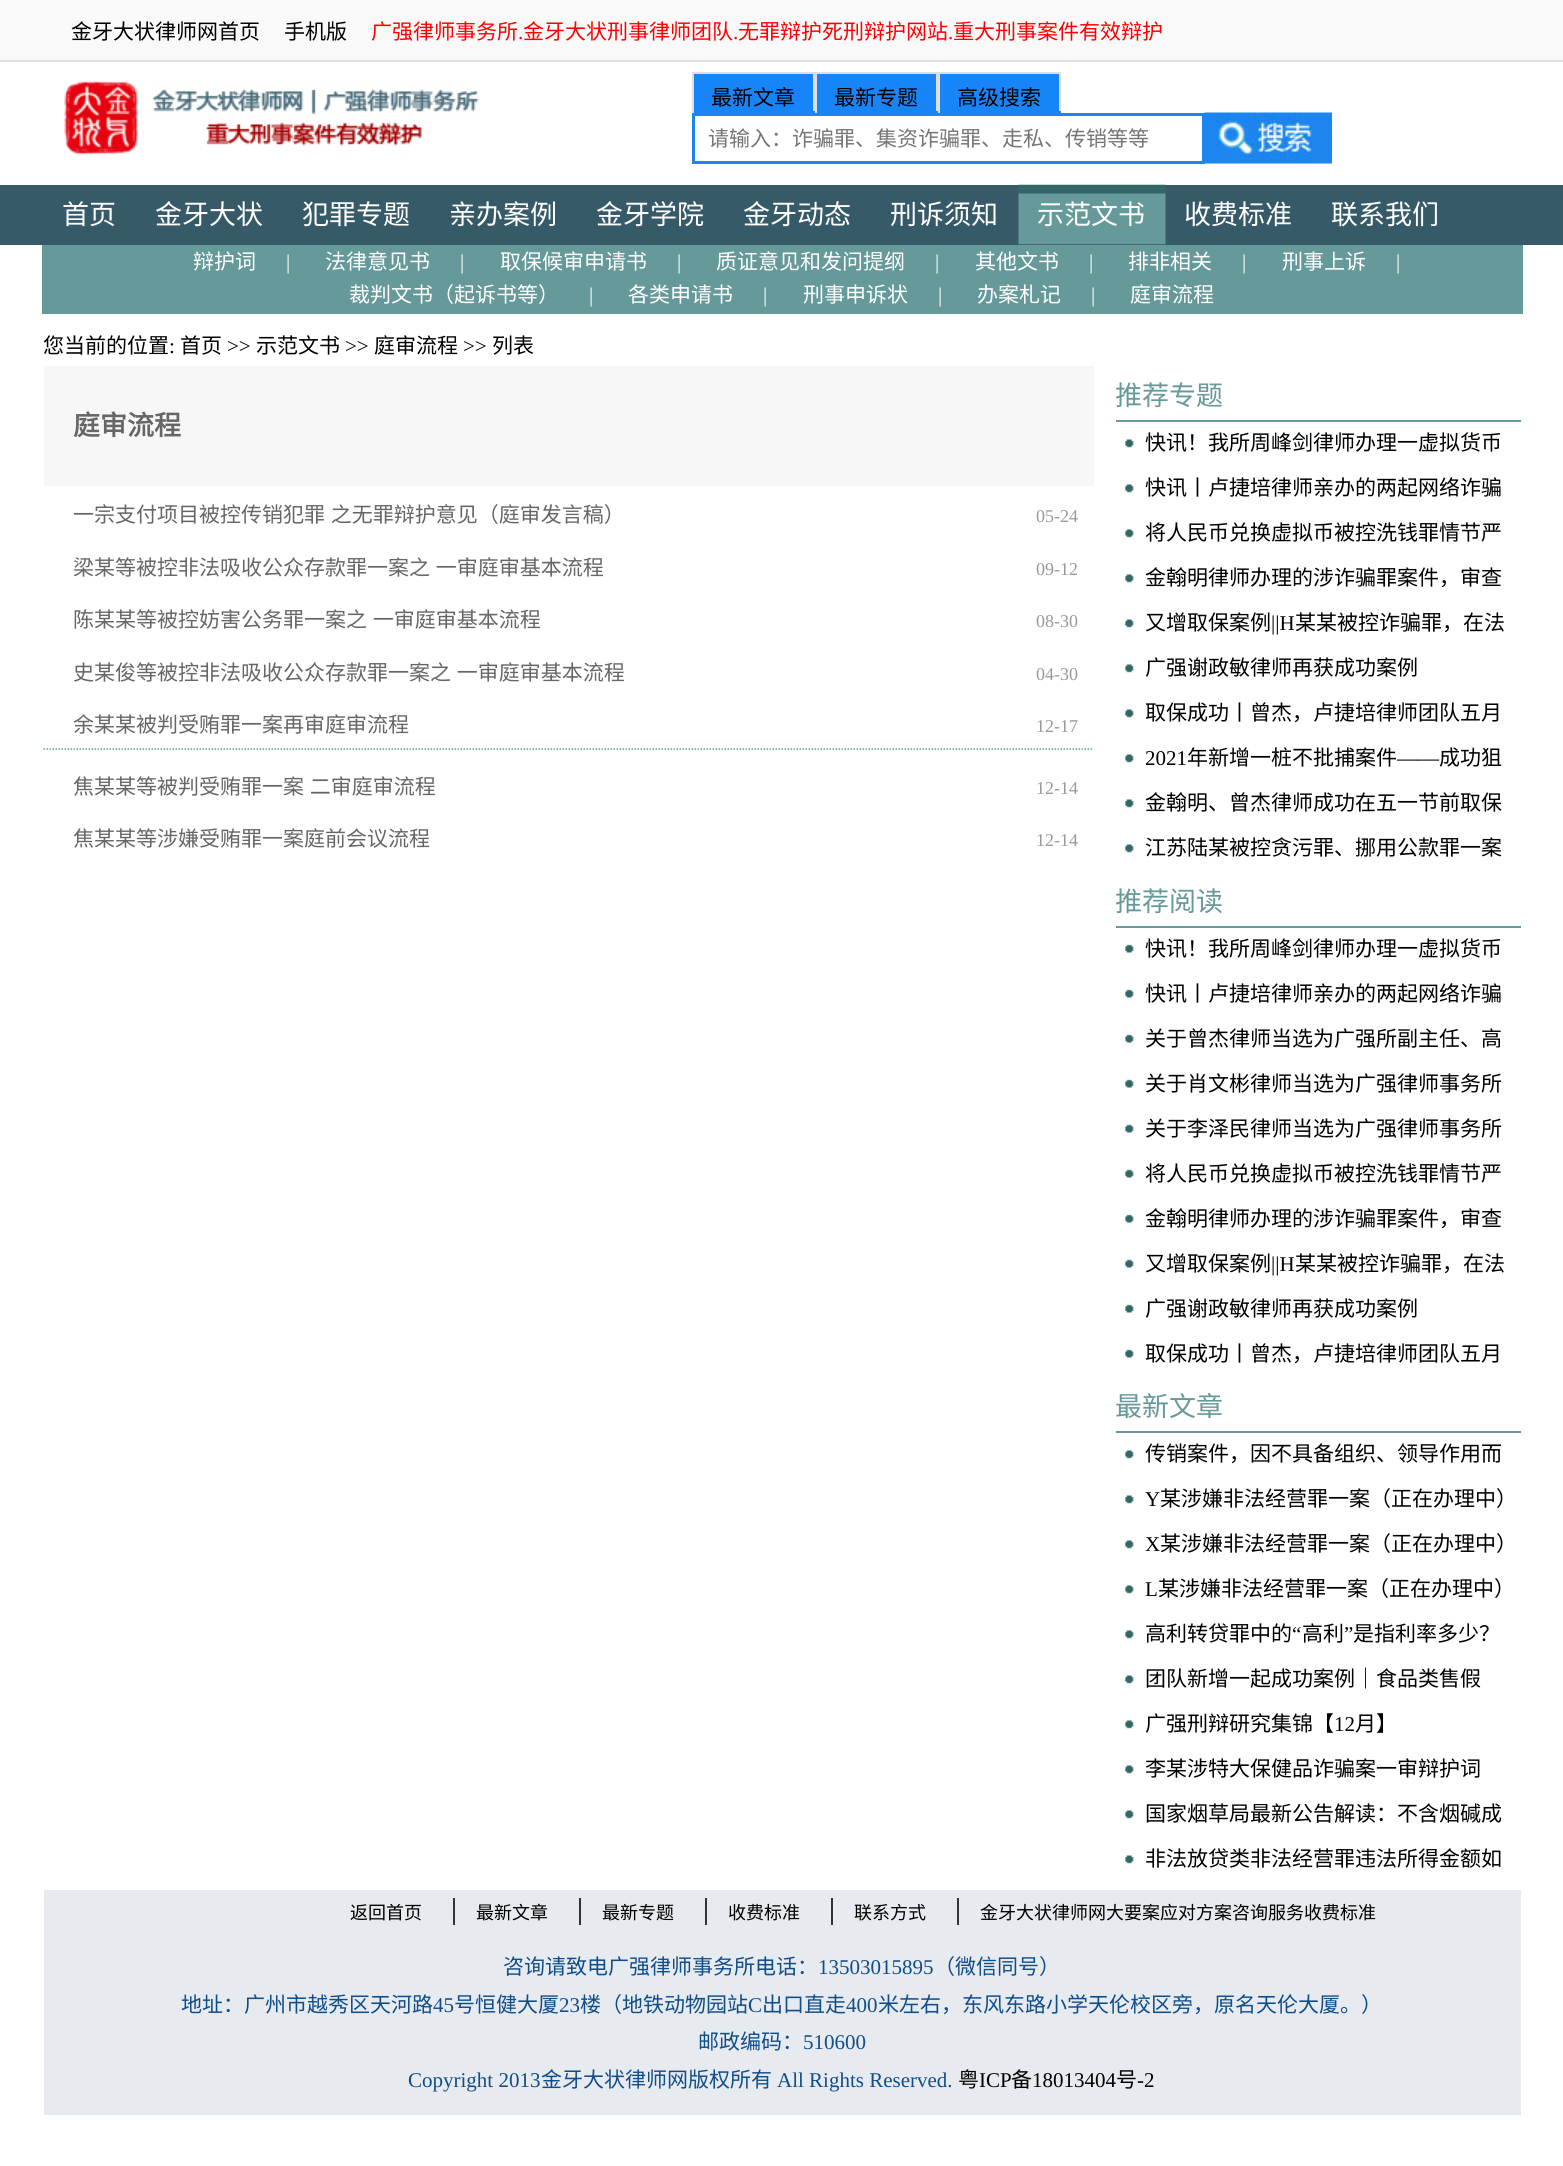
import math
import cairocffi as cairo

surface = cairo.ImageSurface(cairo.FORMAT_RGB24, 1563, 2166)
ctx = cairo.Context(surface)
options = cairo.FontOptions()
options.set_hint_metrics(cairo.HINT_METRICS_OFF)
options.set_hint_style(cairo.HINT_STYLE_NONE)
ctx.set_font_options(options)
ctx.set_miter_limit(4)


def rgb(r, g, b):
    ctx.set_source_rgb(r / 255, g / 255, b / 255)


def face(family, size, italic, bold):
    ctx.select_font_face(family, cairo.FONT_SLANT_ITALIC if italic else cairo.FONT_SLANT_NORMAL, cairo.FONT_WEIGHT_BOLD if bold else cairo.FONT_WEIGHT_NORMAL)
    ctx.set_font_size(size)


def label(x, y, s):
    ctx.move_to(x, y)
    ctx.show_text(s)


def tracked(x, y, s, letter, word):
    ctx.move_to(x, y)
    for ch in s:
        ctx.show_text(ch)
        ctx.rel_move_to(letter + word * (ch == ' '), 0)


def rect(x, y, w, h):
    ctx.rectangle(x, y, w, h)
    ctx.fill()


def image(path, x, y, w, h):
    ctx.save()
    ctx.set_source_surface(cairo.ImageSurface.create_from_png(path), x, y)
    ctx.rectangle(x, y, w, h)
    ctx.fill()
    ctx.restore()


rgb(255, 255, 255)
ctx.paint()
rgb(249, 249, 249)
rect(0, 0, 1563, 60)
rgb(225, 225, 225)
rect(0, 60, 1563, 2)
face('Noto Sans CJK SC', 21, 0, 0)
rgb(0, 0, 0)
label(71, 39, '金牙大状律师网首页')
label(284, 39, '手机版')
rgb(255, 0, 0)
label(371, 39, '广强律师事务所')
face('Liberation Serif', 21, 0, 0)
label(518, 39, '.')
face('Noto Sans CJK SC', 21, 0, 0)
label(523, 39, '金牙大状刑事律师团队')
face('Liberation Serif', 21, 0, 0)
label(733, 39, '.')
face('Noto Sans CJK SC', 21, 0, 0)
label(738, 39, '无罪辩护死刑辩护网站')
face('Liberation Serif', 21, 0, 0)
label(948, 39, '.')
face('Noto Sans CJK SC', 21, 0, 0)
label(953, 39, '重大刑事案件有效辩护')
image('image0.png', 64, 80, 415, 75)
rgb(23, 133, 248)
rect(694, 74, 119, 37)
rgb(222, 222, 222)
rect(692, 72, 369, 2)
rect(813, 72, 2, 41)
rgb(23, 133, 248)
rect(692, 111, 123, 2)
rgb(222, 222, 222)
rect(692, 72, 2, 41)
rgb(0, 0, 0)
label(711, 105, '最新文章')
rgb(23, 133, 248)
rect(817, 74, 119, 37)
rgb(222, 222, 222)
rect(936, 72, 2, 41)
rgb(23, 133, 248)
rect(815, 111, 123, 2)
rgb(222, 222, 222)
rect(815, 72, 2, 41)
rgb(0, 0, 0)
label(834, 105, '最新专题')
rgb(23, 133, 248)
rect(940, 74, 119, 37)
rgb(222, 222, 222)
rect(1059, 72, 2, 41)
rgb(23, 133, 248)
rect(938, 111, 123, 2)
rgb(222, 222, 222)
rect(938, 72, 2, 41)
rgb(0, 0, 0)
label(957, 105, '高级搜索')
ctx.rectangle(693.5, 114.5, 510, 48)
rgb(28, 134, 238)
ctx.set_line_width(3)
ctx.stroke()
rgb(117, 117, 117)
label(708, 146, '请输入：诈骗罪、集资诈骗罪、走私、传销等等')
image('image1.png', 1204, 112, 128, 52)
rgb(55, 90, 105)
rect(0, 185, 1563, 60)
face('Noto Sans CJK SC', 27, 0, 0)
rgb(255, 255, 255)
label(62, 224, '首页')
label(155, 224, '金牙大状')
label(302, 224, '犯罪专题')
label(449, 224, '亲办案例')
label(596, 224, '金牙学院')
label(743, 224, '金牙动态')
label(890, 224, '刑诉须知')
image('image2.png', 1018, 184, 148, 61)
label(1037, 224, '示范文书')
label(1184, 224, '收费标准')
label(1331, 224, '联系我们')
rgb(102, 153, 153)
rect(42, 245, 1481, 69)
face('Noto Sans CJK SC', 21, 0, 0)
rgb(255, 255, 255)
label(193, 269, '辩护词')
face('Liberation Serif', 21, 0, 0)
label(286, 269, '|')
face('Noto Sans CJK SC', 21, 0, 0)
label(325, 269, '法律意见书')
face('Liberation Serif', 21, 0, 0)
label(460, 269, '|')
face('Noto Sans CJK SC', 21, 0, 0)
label(500, 269, '取保候审申请书')
face('Liberation Serif', 21, 0, 0)
label(677, 269, '|')
face('Noto Sans CJK SC', 21, 0, 0)
label(716, 269, '质证意见和发问提纲')
face('Liberation Serif', 21, 0, 0)
label(935, 269, '|')
face('Noto Sans CJK SC', 21, 0, 0)
label(975, 269, '其他文书')
face('Liberation Serif', 21, 0, 0)
label(1089, 269, '|')
face('Noto Sans CJK SC', 21, 0, 0)
label(1128, 269, '排非相关')
face('Liberation Serif', 21, 0, 0)
label(1242, 269, '|')
face('Noto Sans CJK SC', 21, 0, 0)
label(1282, 269, '刑事上诉')
face('Liberation Serif', 21, 0, 0)
label(1396, 269, '|')
face('Noto Sans CJK SC', 21, 0, 0)
label(349, 302, '裁判文书（起诉书等）')
face('Liberation Serif', 21, 0, 0)
label(589, 302, '|')
face('Noto Sans CJK SC', 21, 0, 0)
label(628, 302, '各类申请书')
face('Liberation Serif', 21, 0, 0)
label(763, 302, '|')
face('Noto Sans CJK SC', 21, 0, 0)
label(803, 302, '刑事申诉状')
face('Liberation Serif', 21, 0, 0)
label(938, 302, '|')
face('Noto Sans CJK SC', 21, 0, 0)
label(977, 302, '办案札记')
face('Liberation Serif', 21, 0, 0)
label(1091, 302, '|')
face('Noto Sans CJK SC', 21, 0, 0)
label(1130, 302, '庭审流程')
rgb(0, 0, 0)
label(43, 353, '您当前的位置')
face('Liberation Serif', 21, 0, 0)
label(169, 353, ':')
face('Noto Sans CJK SC', 21, 0, 0)
label(180, 353, '首页')
face('Liberation Serif', 21, 0, 0)
label(227, 353, '>>')
face('Noto Sans CJK SC', 21, 0, 0)
label(256, 353, '示范文书')
face('Liberation Serif', 21, 0, 0)
label(345, 353, '>>')
face('Noto Sans CJK SC', 21, 0, 0)
label(374, 353, '庭审流程')
face('Liberation Serif', 21, 0, 0)
label(463, 353, '>>')
face('Noto Sans CJK SC', 21, 0, 0)
label(492, 353, '列表')
rgb(247, 247, 247)
rect(44, 366, 1050, 120)
face('Noto Sans CJK SC', 27, 0, 1)
rgb(102, 102, 102)
label(73, 435, '庭审流程')
face('Noto Sans CJK SC', 21, 0, 0)
tracked(73, 522, '一宗支付项目被控传销犯罪 之无罪辩护意见（庭审发言稿）', 0, 1)
face('Liberation Serif', 18, 0, 0)
rgb(153, 153, 153)
label(1036, 522, '05-24')
face('Noto Sans CJK SC', 21, 0, 0)
rgb(102, 102, 102)
tracked(73, 575, '梁某等被控非法吸收公众存款罪一案之 一审庭审基本流程', 0, 1)
face('Liberation Serif', 18, 0, 0)
rgb(153, 153, 153)
label(1036, 575, '09-12')
face('Noto Sans CJK SC', 21, 0, 0)
rgb(102, 102, 102)
tracked(73, 627, '陈某某等被控妨害公务罪一案之 一审庭审基本流程', 0, 1)
face('Liberation Serif', 18, 0, 0)
rgb(153, 153, 153)
label(1036, 627, '08-30')
face('Noto Sans CJK SC', 21, 0, 0)
rgb(102, 102, 102)
tracked(73, 680, '史某俊等被控非法吸收公众存款罪一案之 一审庭审基本流程', 0, 1)
face('Liberation Serif', 18, 0, 0)
rgb(153, 153, 153)
label(1036, 680, '04-30')
ctx.new_path()
ctx.move_to(43.5, 749)
ctx.line_to(1093.5, 749)
rgb(102, 153, 153)
ctx.set_line_width(1.5)
ctx.set_dash([1.5, 1.5])
ctx.stroke()
face('Noto Sans CJK SC', 21, 0, 0)
rgb(102, 102, 102)
label(73, 732, '余某某被判受贿罪一案再审庭审流程')
face('Liberation Serif', 18, 0, 0)
rgb(153, 153, 153)
label(1036, 732, '12-17')
face('Noto Sans CJK SC', 21, 0, 0)
rgb(102, 102, 102)
tracked(73, 794, '焦某某等被判受贿罪一案 二审庭审流程', 0, 1)
face('Liberation Serif', 18, 0, 0)
rgb(153, 153, 153)
label(1036, 794, '12-14')
face('Noto Sans CJK SC', 21, 0, 0)
rgb(102, 102, 102)
label(73, 846, '焦某某等涉嫌受贿罪一案庭前会议流程')
face('Liberation Serif', 18, 0, 0)
rgb(153, 153, 153)
label(1036, 846, '12-14')
rgb(102, 153, 153)
rect(1116, 420, 405, 2)
face('Noto Sans CJK SC', 27, 0, 0)
label(1115, 405, '推荐专题')
image('image3.png', 1125, 439, 9, 9)
face('Noto Sans CJK SC', 21, 0, 0)
rgb(0, 0, 0)
label(1145, 450, '快讯！我所周峰剑律师办理一虚拟货币')
image('image3.png', 1125, 484, 9, 9)
label(1145, 495, '快讯丨卢捷培律师亲办的两起网络诈骗')
image('image3.png', 1125, 529, 9, 9)
label(1145, 540, '将人民币兑换虚拟币被控洗钱罪情节严')
image('image3.png', 1125, 574, 9, 9)
label(1145, 585, '金翰明律师办理的涉诈骗罪案件，审查')
image('image3.png', 1125, 619, 9, 9)
label(1145, 630, '又增取保案例')
face('Liberation Serif', 21, 0, 0)
label(1271, 630, '||H')
face('Noto Sans CJK SC', 21, 0, 0)
label(1295, 630, '某某被控诈骗罪，在法')
image('image3.png', 1125, 664, 9, 9)
label(1145, 675, '广强谢政敏律师再获成功案例')
image('image3.png', 1125, 709, 9, 9)
label(1145, 720, '取保成功丨曾杰，卢捷培律师团队五月')
image('image3.png', 1125, 754, 9, 9)
face('Liberation Serif', 21, 0, 0)
label(1145, 765, '2021')
face('Noto Sans CJK SC', 21, 0, 0)
label(1187, 765, '年新增一桩不批捕案件')
face('Liberation Serif', 21, 0, 0)
label(1397, 765, '——')
face('Noto Sans CJK SC', 21, 0, 0)
label(1439, 765, '成功狙')
image('image3.png', 1125, 799, 9, 9)
label(1145, 810, '金翰明、曾杰律师成功在五一节前取保')
image('image3.png', 1125, 844, 9, 9)
label(1145, 855, '江苏陆某被控贪污罪、挪用公款罪一案')
rgb(102, 153, 153)
rect(1116, 926, 405, 2)
face('Noto Sans CJK SC', 27, 0, 0)
label(1115, 911, '推荐阅读')
image('image4.png', 1125, 944, 9, 9)
face('Noto Sans CJK SC', 21, 0, 0)
rgb(0, 0, 0)
label(1145, 956, '快讯！我所周峰剑律师办理一虚拟货币')
image('image4.png', 1125, 989, 9, 9)
label(1145, 1001, '快讯丨卢捷培律师亲办的两起网络诈骗')
image('image4.png', 1125, 1034, 9, 9)
label(1145, 1046, '关于曾杰律师当选为广强所副主任、高')
image('image4.png', 1125, 1079, 9, 9)
label(1145, 1091, '关于肖文彬律师当选为广强律师事务所')
image('image4.png', 1125, 1124, 9, 9)
label(1145, 1136, '关于李泽民律师当选为广强律师事务所')
image('image4.png', 1125, 1169, 9, 9)
label(1145, 1181, '将人民币兑换虚拟币被控洗钱罪情节严')
image('image4.png', 1125, 1214, 9, 9)
label(1145, 1226, '金翰明律师办理的涉诈骗罪案件，审查')
image('image4.png', 1125, 1259, 9, 9)
label(1145, 1271, '又增取保案例')
face('Liberation Serif', 21, 0, 0)
label(1271, 1271, '||H')
face('Noto Sans CJK SC', 21, 0, 0)
label(1295, 1271, '某某被控诈骗罪，在法')
image('image4.png', 1125, 1304, 9, 9)
label(1145, 1316, '广强谢政敏律师再获成功案例')
image('image4.png', 1125, 1349, 9, 9)
label(1145, 1361, '取保成功丨曾杰，卢捷培律师团队五月')
rgb(102, 153, 153)
rect(1116, 1431, 405, 2)
face('Noto Sans CJK SC', 27, 0, 0)
label(1115, 1416, '最新文章')
image('image3.png', 1125, 1450, 9, 9)
face('Noto Sans CJK SC', 21, 0, 0)
rgb(0, 0, 0)
label(1145, 1461, '传销案件，因不具备组织、领导作用而')
image('image3.png', 1125, 1495, 9, 9)
face('Liberation Serif', 21, 0, 0)
label(1145, 1506, 'Y')
face('Noto Sans CJK SC', 21, 0, 0)
label(1160, 1506, '某涉嫌非法经营罪一案（正在办理中）')
image('image3.png', 1125, 1540, 9, 9)
face('Liberation Serif', 21, 0, 0)
label(1145, 1551, 'X')
face('Noto Sans CJK SC', 21, 0, 0)
label(1160, 1551, '某涉嫌非法经营罪一案（正在办理中）')
image('image3.png', 1125, 1585, 9, 9)
face('Liberation Serif', 21, 0, 0)
label(1145, 1596, 'L')
face('Noto Sans CJK SC', 21, 0, 0)
label(1158, 1596, '某涉嫌非法经营罪一案（正在办理中）')
image('image3.png', 1125, 1630, 9, 9)
label(1145, 1641, '高利转贷罪中的')
face('Liberation Serif', 21, 0, 0)
label(1292, 1641, '“')
face('Noto Sans CJK SC', 21, 0, 0)
label(1302, 1641, '高利')
face('Liberation Serif', 21, 0, 0)
label(1344, 1641, '”')
face('Noto Sans CJK SC', 21, 0, 0)
label(1353, 1641, '是指利率多少？')
image('image3.png', 1125, 1675, 9, 9)
label(1145, 1686, '团队新增一起成功案例｜食品类售假')
image('image3.png', 1125, 1720, 9, 9)
label(1145, 1731, '广强刑辩研究集锦【')
face('Liberation Serif', 21, 0, 0)
label(1334, 1731, '12')
face('Noto Sans CJK SC', 21, 0, 0)
label(1355, 1731, '月】')
image('image3.png', 1125, 1765, 9, 9)
label(1145, 1776, '李某涉特大保健品诈骗案一审辩护词')
image('image3.png', 1125, 1810, 9, 9)
label(1145, 1821, '国家烟草局最新公告解读：不含烟碱成')
image('image3.png', 1125, 1855, 9, 9)
label(1145, 1866, '非法放贷类非法经营罪违法所得金额如')
rgb(231, 234, 238)
rect(44, 1890, 1477, 225)
rgb(51, 51, 51)
rect(453, 1898, 2, 27)
face('Noto Sans CJK SC', 18, 0, 0)
rgb(0, 0, 0)
label(350, 1919, '返回首页')
rgb(51, 51, 51)
rect(579, 1898, 2, 27)
rgb(0, 0, 0)
label(476, 1919, '最新文章')
rgb(51, 51, 51)
rect(705, 1898, 2, 27)
rgb(0, 0, 0)
label(602, 1919, '最新专题')
rgb(51, 51, 51)
rect(831, 1898, 2, 27)
rgb(0, 0, 0)
label(728, 1919, '收费标准')
rgb(51, 51, 51)
rect(957, 1898, 2, 27)
rgb(0, 0, 0)
label(854, 1919, '联系方式')
label(980, 1919, '金牙大状律师网大要案应对方案咨询服务收费标准')
face('Noto Sans CJK SC', 21, 0, 0)
rgb(16, 78, 139)
label(503, 1974, '咨询请致电广强律师事务所电话：')
face('Liberation Serif', 21, 0, 0)
label(818, 1974, '13503015895')
face('Noto Sans CJK SC', 21, 0, 0)
label(934, 1974, '（微信同号）')
label(181, 2012, '地址：广州市越秀区天河路')
face('Liberation Serif', 21, 0, 0)
label(433, 2012, '45')
face('Noto Sans CJK SC', 21, 0, 0)
label(454, 2012, '号恒健大厦')
face('Liberation Serif', 21, 0, 0)
label(559, 2012, '23')
face('Noto Sans CJK SC', 21, 0, 0)
label(580, 2012, '楼（地铁动物园站')
face('Liberation Serif', 21, 0, 0)
label(748, 2012, 'C')
face('Noto Sans CJK SC', 21, 0, 0)
label(762, 2012, '出口直走')
face('Liberation Serif', 21, 0, 0)
label(846, 2012, '400')
face('Noto Sans CJK SC', 21, 0, 0)
label(878, 2012, '米左右，东风东路小学天伦校区旁，原名天伦大厦。）')
label(698, 2049, '邮政编码：')
face('Liberation Serif', 21, 0, 0)
label(803, 2049, '510600')
label(408, 2087, 'Copyright 2013')
face('Noto Sans CJK SC', 21, 0, 0)
label(541, 2087, '金牙大状律师网版权所有')
face('Liberation Serif', 21, 0, 0)
label(777, 2087, 'All Rights Reserved.')
face('Noto Sans CJK SC', 21, 0, 0)
rgb(0, 0, 0)
label(958, 2087, '粤')
face('Liberation Serif', 21, 0, 0)
label(979, 2087, 'ICP')
face('Noto Sans CJK SC', 21, 0, 0)
label(1011, 2087, '备')
face('Liberation Serif', 21, 0, 0)
label(1032, 2087, '18013404')
face('Noto Sans CJK SC', 21, 0, 0)
label(1116, 2087, '号')
face('Liberation Serif', 21, 0, 0)
label(1137, 2087, '-2')
surface.write_to_png('render.png')
